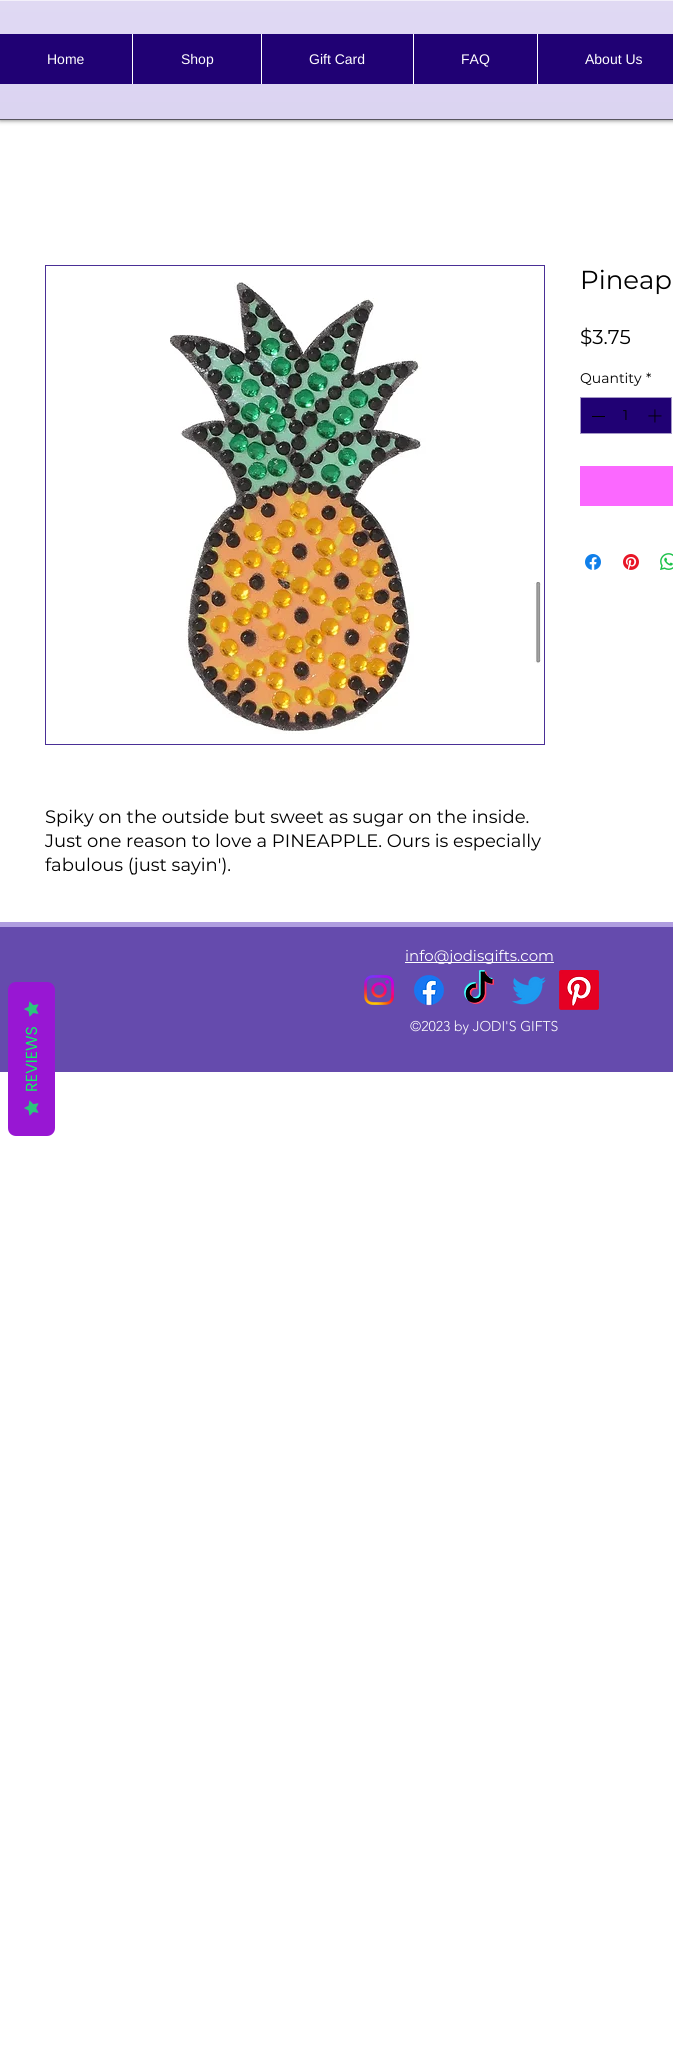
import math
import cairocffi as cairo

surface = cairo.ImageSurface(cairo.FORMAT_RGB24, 673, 2071)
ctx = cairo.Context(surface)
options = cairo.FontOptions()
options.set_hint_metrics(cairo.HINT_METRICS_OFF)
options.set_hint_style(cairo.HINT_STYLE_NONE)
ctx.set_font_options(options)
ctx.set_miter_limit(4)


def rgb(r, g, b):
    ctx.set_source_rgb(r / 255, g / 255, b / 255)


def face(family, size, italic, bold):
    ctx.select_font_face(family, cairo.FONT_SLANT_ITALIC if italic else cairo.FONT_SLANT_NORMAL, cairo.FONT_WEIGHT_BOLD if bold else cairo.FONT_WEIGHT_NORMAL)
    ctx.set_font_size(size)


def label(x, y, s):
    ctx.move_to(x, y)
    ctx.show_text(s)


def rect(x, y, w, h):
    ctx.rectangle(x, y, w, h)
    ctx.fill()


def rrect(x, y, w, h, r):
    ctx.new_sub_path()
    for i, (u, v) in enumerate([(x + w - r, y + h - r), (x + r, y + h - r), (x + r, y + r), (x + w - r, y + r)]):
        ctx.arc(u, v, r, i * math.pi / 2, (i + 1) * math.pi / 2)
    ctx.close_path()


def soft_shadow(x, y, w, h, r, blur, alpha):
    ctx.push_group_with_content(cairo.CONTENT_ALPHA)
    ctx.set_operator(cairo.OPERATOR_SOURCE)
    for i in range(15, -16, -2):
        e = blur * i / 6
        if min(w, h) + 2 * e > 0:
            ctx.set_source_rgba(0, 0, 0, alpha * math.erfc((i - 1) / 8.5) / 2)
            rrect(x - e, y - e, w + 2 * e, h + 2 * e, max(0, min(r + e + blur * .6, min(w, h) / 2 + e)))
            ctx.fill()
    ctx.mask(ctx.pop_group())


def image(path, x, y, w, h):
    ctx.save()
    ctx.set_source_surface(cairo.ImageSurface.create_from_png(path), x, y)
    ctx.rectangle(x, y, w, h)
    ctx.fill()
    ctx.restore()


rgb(255, 255, 255)
ctx.paint()
rgb(0, 0, 0)
soft_shadow(0, 0, 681, 120, 0, 2.5, 0.6)
rgb(213, 204, 239)
rect(0, 1, 673, 118)
image('image0.png', 0, 1, 673, 118)
rgb(88, 84, 96)
rect(0, 119, 673, 1)
rgb(243, 240, 250)
rect(0, 0, 673, 1)
rgb(32, 1, 116)
rect(0, 34, 673, 50)
face('Liberation Sans', 14, 0, 0)
rgb(255, 255, 255)
label(47, 64, 'Home')
rect(132, 34, 1, 50)
label(181, 64, 'Shop')
rect(261, 34, 1, 50)
label(309, 64, 'Gift Card')
rect(413, 34, 1, 50)
label(461, 64, 'FAQ')
rect(537, 34, 1, 50)
label(585, 64, 'About Us')
face('Montserrat', 26, 0, 0)
rgb(0, 0, 0)
label(580, 289, 'Pineap')
face('Montserrat', 20, 0, 0)
label(580, 344, '$3.75')
face('Montserrat', 14, 0, 0)
label(580, 383, 'Quantity')
label(646, 383, '*')
rgb(32, 1, 116)
ctx.rectangle(580.5, 397.5, 91, 36)
ctx.fill_preserve()
rgb(166, 153, 199)
ctx.set_line_width(1)
ctx.stroke()
rgb(0, 0, 0)
rect(592, 416, 13, 1)
label(623, 420, '1')
image('image1.png', 648, 409, 14, 14)
rgb(251, 104, 255)
rect(580, 466, 93, 40)
image('image2.png', 585, 554, 16, 16)
image('image3.png', 623, 554, 16, 16)
image('image4.png', 660, 553, 13, 17)
ctx.rectangle(45.5, 265.5, 499, 479)
rgb(74, 47, 150)
ctx.stroke()
image('image5.png', 170, 282, 371, 452)
face('Montserrat', 18, 0, 0)
rgb(0, 0, 0)
label(45, 823, 'Spiky on the outside but sweet as sugar on the inside.')
label(45, 847, 'Just one reason to love a PINEAPPLE. Ours is especially')
label(45, 871, 'fabulous (just sayin\').')
rgb(101, 75, 173)
rect(0, 927, 673, 145)
rgb(175, 157, 224)
rect(0, 922, 673, 5)
rgb(255, 255, 255)
rect(405, 962, 149, 1)
face('Montserrat', 15, 0, 0)
label(405, 961, 'info@jodisgifts.com')
image('image6.png', 364, 974, 31, 31)
image('image7.png', 413, 975, 31, 31)
image('image8.png', 464, 970, 31, 35)
image('image9.png', 512, 976, 34, 29)
image('image10.png', 559, 970, 40, 40)
face('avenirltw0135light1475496 Light', 14, 0, 0)
label(410, 1031, '©2023 by JODI\'S GIFTS')
rgb(152, 23, 211)
ctx.new_path()
ctx.move_to(8, 1128)
ctx.line_to(8, 990)
ctx.curve_to(8, 985, 12, 982, 16, 982)
ctx.line_to(47, 982)
ctx.curve_to(51, 982, 55, 985, 55, 990)
ctx.line_to(55, 1128)
ctx.curve_to(55, 1133, 51, 1136, 47, 1136)
ctx.line_to(16, 1136)
ctx.curve_to(12, 1136, 8, 1133, 8, 1128)
ctx.close_path()
ctx.fill()
image('image11.png', 24, 1001, 15, 16)
face('Poppins', 16, 0, 0)
rgb(17, 238, 102)
ctx.save()
ctx.translate(37, 1092)
ctx.rotate(-90 * math.pi / 180)
label(0, 0, 'REVIEWS')
ctx.restore()
image('image11.png', 24, 1100, 15, 16)
surface.write_to_png('render.png')
